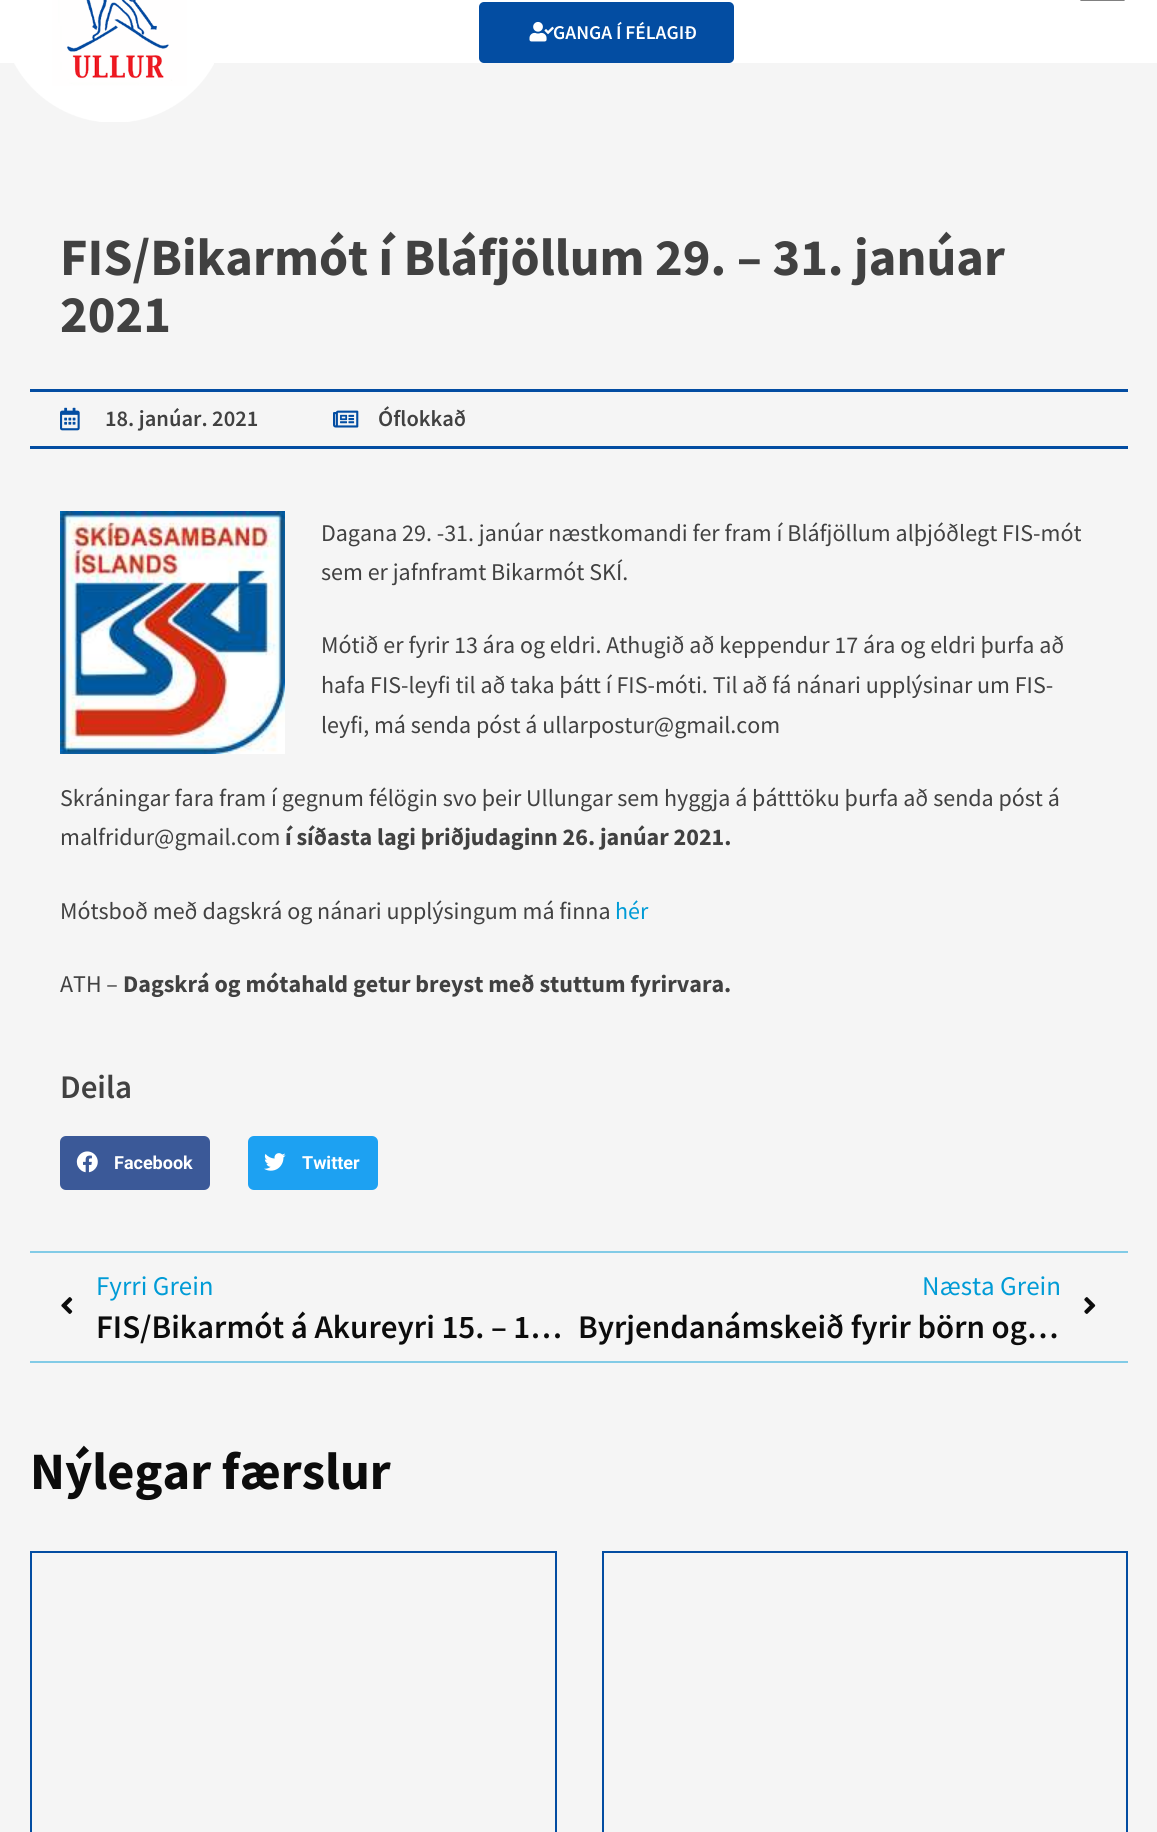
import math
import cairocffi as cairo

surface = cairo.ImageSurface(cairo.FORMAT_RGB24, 1157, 1832)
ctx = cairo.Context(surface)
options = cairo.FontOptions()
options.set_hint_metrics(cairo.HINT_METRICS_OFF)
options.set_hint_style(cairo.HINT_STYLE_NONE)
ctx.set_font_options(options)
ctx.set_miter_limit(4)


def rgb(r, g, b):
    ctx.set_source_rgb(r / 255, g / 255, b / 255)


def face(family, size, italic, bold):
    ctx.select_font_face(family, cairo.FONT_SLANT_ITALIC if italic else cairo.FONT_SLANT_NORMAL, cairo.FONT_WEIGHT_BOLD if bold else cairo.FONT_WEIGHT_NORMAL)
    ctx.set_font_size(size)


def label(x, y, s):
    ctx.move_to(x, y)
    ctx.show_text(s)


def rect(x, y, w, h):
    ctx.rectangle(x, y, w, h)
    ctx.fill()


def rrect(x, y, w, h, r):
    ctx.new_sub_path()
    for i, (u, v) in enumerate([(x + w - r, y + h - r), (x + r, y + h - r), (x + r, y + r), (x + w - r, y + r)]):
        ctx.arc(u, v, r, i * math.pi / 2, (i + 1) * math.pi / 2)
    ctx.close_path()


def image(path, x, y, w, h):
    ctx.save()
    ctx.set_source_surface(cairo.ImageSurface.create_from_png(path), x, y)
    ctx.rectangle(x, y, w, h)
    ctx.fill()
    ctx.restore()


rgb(245, 245, 245)
ctx.paint()
rgb(255, 255, 255)
rect(0, 0, 1157, 63)
image('image0.png', 14, 0, 200, 122)
image('image1.png', 1080, 0, 45, 1)
rgb(3, 77, 162)
rrect(479, 2, 255, 61, 5)
ctx.fill()
image('image2.png', 529, 21, 25, 21)
face('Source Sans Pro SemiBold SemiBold', 19.5, 0, 0)
rgb(255, 255, 255)
label(553, 39, 'GANGA Í FÉLAGIÐ')
face('Source Sans Pro', 52.5, 0, 1)
rgb(65, 65, 65)
label(60, 275, 'FIS/Bikarmót í Bláfjöllum 29. – 31. janúar')
label(60, 332, '2021')
rgb(3, 77, 162)
rect(30, 389, 1098, 3)
rect(30, 446, 1098, 3)
image('image3.png', 60, 407, 20, 24)
face('Source Sans Pro SemiBold SemiBold', 22.5, 0, 0)
rgb(65, 65, 65)
label(105, 426, '18. janúar. 2021')
image('image4.png', 333, 410, 26, 18)
label(378, 426, 'Óflokkað')
image('image5.png', 60, 511, 225, 243)
face('Source Sans Pro', 24, 0, 0)
label(321, 541, 'Dagana 29. -31. janúar næstkomandi fer fram í Bláfjöllum alþjóðlegt FIS-mót')
label(321, 580, 'sem er jafnframt Bikarmót SKÍ.')
label(321, 653, 'Mótið er fyrir 13 ára og eldri. Athugið að keppendur 17 ára og eldri þurfa að')
label(321, 693, 'hafa FIS-leyfi til að taka þátt í FIS-móti. Til að fá nánari upplýsinar um FIS-')
label(321, 733, 'leyfi, má senda póst á ullarpostur@gmail.com')
label(60, 806, 'Skráningar fara fram í gegnum félögin svo þeir Ullungar sem hyggja á þátttöku þurfa að senda póst á')
label(60, 845, 'malfridur@gmail.com')
face('Source Sans Pro', 24, 0, 1)
label(285, 845, 'í síðasta lagi þriðjudaginn 26. janúar 2021.')
face('Source Sans Pro', 24, 0, 0)
label(60, 919, 'Mótsboð með dagskrá og nánari upplýsingum má finna')
rgb(0, 155, 214)
label(615, 919, 'hér')
rgb(65, 65, 65)
label(60, 992, 'ATH –')
face('Source Sans Pro', 24, 0, 1)
label(123, 992, 'Dagskrá og mótahald getur breyst með stuttum fyrirvara.')
face('Source Sans Pro SemiBold SemiBold', 33, 0, 0)
label(60, 1098, 'Deila')
rgb(59, 89, 152)
rrect(60, 1136, 150, 54, 6)
ctx.fill()
image('image6.png', 76, 1151, 22, 22)
face('Roboto', 18, 0, 1)
rgb(255, 255, 255)
label(114, 1169, 'Facebook')
rgb(29, 161, 242)
rrect(248, 1136, 130, 54, 6)
ctx.fill()
image('image7.png', 264, 1153, 22, 18)
rgb(255, 255, 255)
label(302, 1169, 'Twitter')
rgb(130, 203, 230)
rect(30, 1251, 1098, 2)
rect(30, 1361, 1098, 2)
image('image8.png', 61, 1297, 12, 17)
face('Source Sans Pro', 27, 0, 0)
rgb(0, 155, 214)
label(96, 1295, 'Fyrri Grein')
face('Source Sans Pro SemiBold SemiBold', 33, 0, 0)
rgb(12, 12, 12)
label(96, 1338, 'FIS/Bikarmót á Akureyri 15. – 1…')
face('Source Sans Pro', 27, 0, 0)
rgb(0, 155, 214)
label(922, 1295, 'Næsta Grein')
face('Source Sans Pro SemiBold SemiBold', 33, 0, 0)
rgb(12, 12, 12)
label(578, 1338, 'Byrjendanámskeið fyrir börn og…')
image('image9.png', 1084, 1297, 12, 17)
face('Source Sans Pro', 52.5, 0, 1)
label(30, 1489, 'Nýlegar færslur')
ctx.rectangle(31, 1552, 525, 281)
rgb(3, 77, 162)
ctx.stroke()
ctx.rectangle(603, 1552, 524, 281)
ctx.stroke()
surface.write_to_png('render.png')
